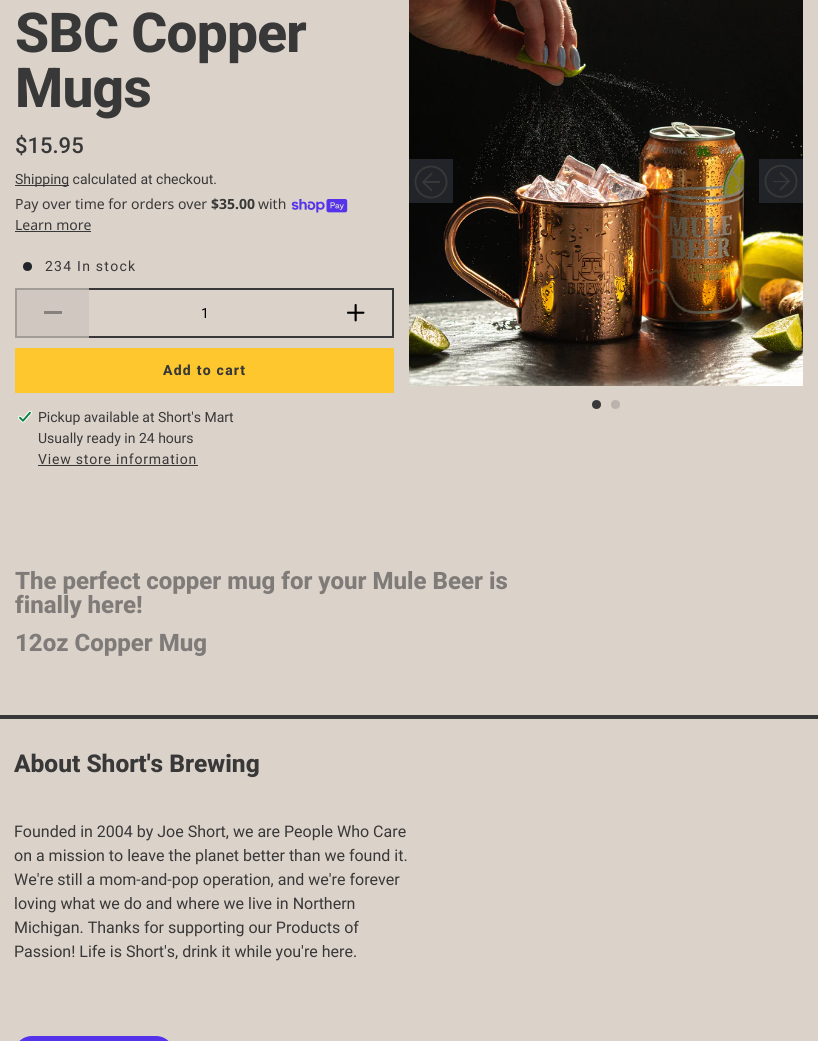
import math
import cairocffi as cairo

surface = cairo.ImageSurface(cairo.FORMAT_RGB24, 818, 1041)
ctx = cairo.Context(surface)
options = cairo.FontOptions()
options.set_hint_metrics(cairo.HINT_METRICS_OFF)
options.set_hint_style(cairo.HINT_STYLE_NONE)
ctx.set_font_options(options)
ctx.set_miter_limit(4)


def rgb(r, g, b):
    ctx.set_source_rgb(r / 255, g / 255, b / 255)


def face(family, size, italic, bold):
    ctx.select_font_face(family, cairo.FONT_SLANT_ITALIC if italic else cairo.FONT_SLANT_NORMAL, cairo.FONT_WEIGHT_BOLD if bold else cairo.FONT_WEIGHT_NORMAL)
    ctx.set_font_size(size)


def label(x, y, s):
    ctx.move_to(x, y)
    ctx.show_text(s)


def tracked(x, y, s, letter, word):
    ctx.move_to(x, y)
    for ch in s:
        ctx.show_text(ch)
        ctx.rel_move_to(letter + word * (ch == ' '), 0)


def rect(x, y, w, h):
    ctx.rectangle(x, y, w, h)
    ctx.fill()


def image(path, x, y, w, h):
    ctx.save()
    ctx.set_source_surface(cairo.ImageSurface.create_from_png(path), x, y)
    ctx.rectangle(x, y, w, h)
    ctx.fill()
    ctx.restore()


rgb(219, 210, 202)
ctx.paint()
face('Roboto ExtraBold', 55, 0, 0)
rgb(56, 56, 56)
tracked(15, 52, 'SBC Copper', -0.75, 0)
tracked(15, 107, 'Mugs', -0.75, 0)
face('Roboto Medium', 22, 0, 0)
label(15, 153, '$15.95')
rect(15, 185, 54, 1)
face('Roboto', 14, 0, 0)
label(15, 184, 'Shipping calculated at checkout.')
face('Noto Sans', 14, 0, 0)
label(15, 209, 'Pay over time for orders over')
face('Noto Sans', 14, 0, 1)
label(211, 209, '$35.00')
face('Noto Sans', 14, 0, 0)
label(258, 209, 'with')
image('image0.png', 291, 199, 57, 14)
label(15, 230, 'Learn more')
rect(15, 231, 76, 1)
rgb(33, 37, 41)
ctx.new_path()
ctx.arc(27.5, 266.5, 4.5, 0, 2 * math.pi)
ctx.fill()
face('Roboto', 14, 0, 0)
rgb(56, 56, 56)
tracked(45, 271, '234 In stock', 1.25, 0)
rgb(208, 199, 192)
rect(17, 290, 72, 46)
rgb(162, 156, 151)
rect(15, 288, 74, 2)
rect(15, 336, 74, 2)
rect(15, 288, 2, 50)
rgb(135, 129, 125)
rect(44, 311, 18, 3)
rgb(56, 56, 56)
rect(89, 288, 305, 2)
rect(89, 336, 231, 2)
rgb(0, 0, 0)
label(201, 318, '1')
rgb(56, 56, 56)
rect(392, 288, 2, 50)
rect(320, 336, 74, 2)
image('image1.png', 347, 304, 18, 18)
rgb(255, 199, 46)
rect(15, 348, 379, 45)
face('Roboto ExtraBold', 14, 0, 0)
rgb(56, 56, 56)
tracked(163, 375, 'Add to cart', 1.25, 0)
image('image2.png', 18, 410, 14, 13)
face('Roboto', 14, 0, 0)
label(38, 422, 'Pickup available at Short\'s Mart')
label(38, 443, 'Usually ready in 24 hours')
tracked(38, 464, 'View store information', 0.8, 0)
rect(38, 465, 160, 1)
image('image3.png', 409, 0, 394, 386)
ctx.arc(596.5, 404.5, 4.5, 0, 2 * math.pi)
ctx.fill()
rgb(186, 179, 173)
ctx.arc(615.5, 404.5, 4.5, 0, 2 * math.pi)
ctx.fill()
rgb(33, 37, 41)
rect(409, 159, 44, 44)
image('image4.png', 414, 165, 34, 34)
rect(759, 159, 44, 44)
image('image5.png', 764, 165, 34, 33)
rgb(56, 56, 56)
rect(0, 715, 818, 4)
face('Roboto ExtraBold', 24, 0, 0)
rgb(127, 123, 120)
label(15, 589, 'The perfect copper mug for your Mule Beer is')
label(15, 613, 'finally here!')
label(15, 651, '12oz Copper Mug')
face('Roboto ExtraBold', 24.5, 0, 0)
rgb(56, 56, 56)
label(14, 772, 'About Short\'s Brewing')
face('Roboto', 16, 0, 0)
label(14, 837, 'Founded in 2004 by Joe Short, we are People Who Care')
label(14, 861, 'on a mission to leave the planet better than we found it.')
label(14, 885, 'We\'re still a mom-and-pop operation, and we\'re forever')
label(14, 909, 'loving what we do and where we live in Northern')
label(14, 933, 'Michigan. Thanks for supporting our Products of')
label(14, 957, 'Passion! Life is Short\'s, drink it while you\'re here.')
rgb(84, 51, 235)
ctx.new_path()
ctx.move_to(32, 1036)
ctx.line_to(156, 1036)
ctx.curve_to(166, 1036, 174, 1044, 174, 1054)
ctx.line_to(174, 1041)
ctx.line_to(14, 1041)
ctx.line_to(14, 1054)
ctx.curve_to(14, 1044, 22, 1036, 32, 1036)
ctx.close_path()
ctx.fill()
surface.write_to_png('render.png')
